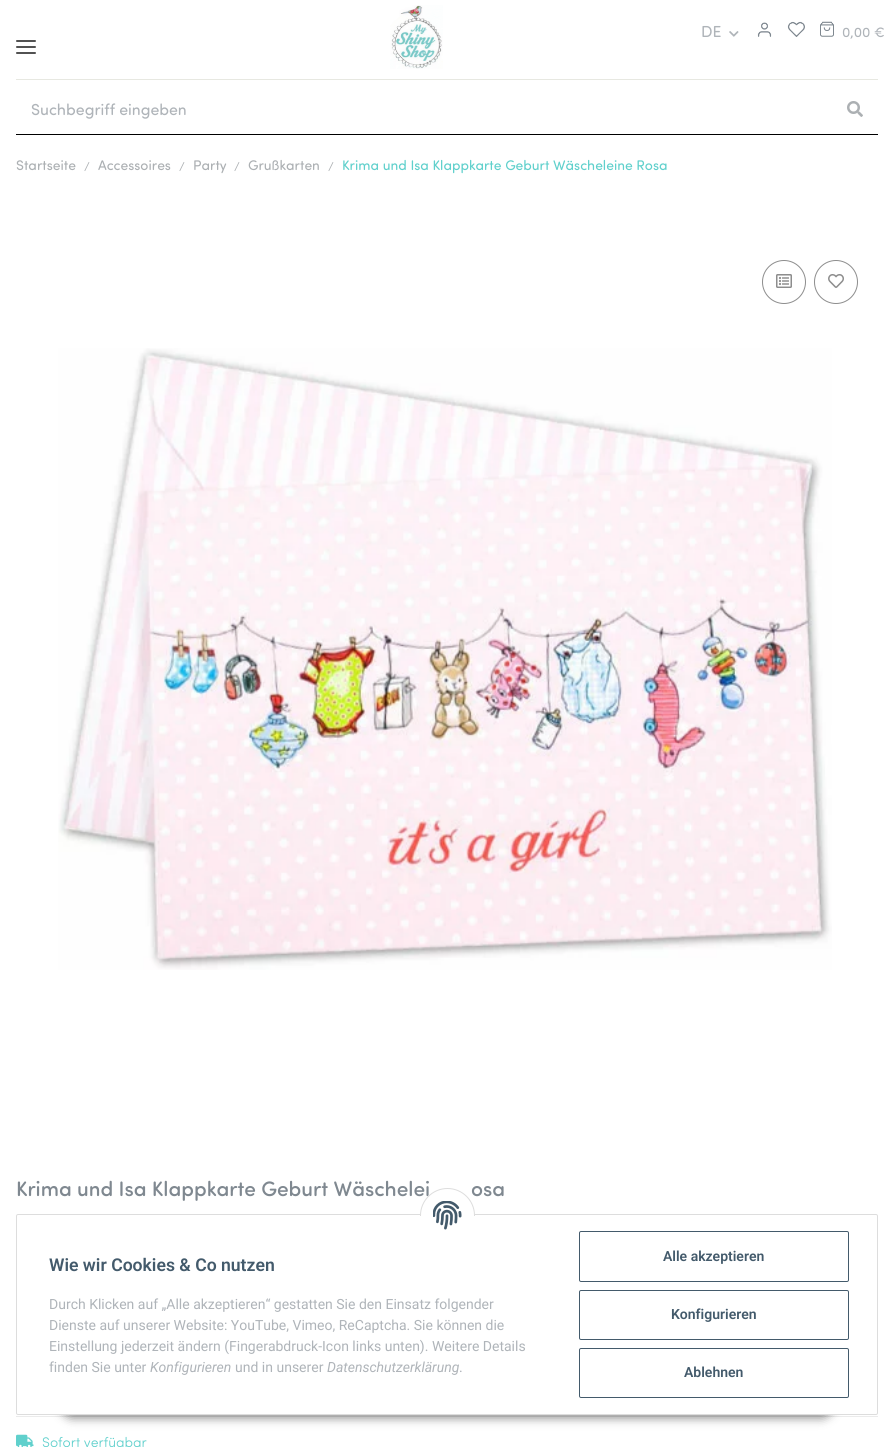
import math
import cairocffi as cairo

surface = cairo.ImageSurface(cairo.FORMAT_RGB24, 894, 1447)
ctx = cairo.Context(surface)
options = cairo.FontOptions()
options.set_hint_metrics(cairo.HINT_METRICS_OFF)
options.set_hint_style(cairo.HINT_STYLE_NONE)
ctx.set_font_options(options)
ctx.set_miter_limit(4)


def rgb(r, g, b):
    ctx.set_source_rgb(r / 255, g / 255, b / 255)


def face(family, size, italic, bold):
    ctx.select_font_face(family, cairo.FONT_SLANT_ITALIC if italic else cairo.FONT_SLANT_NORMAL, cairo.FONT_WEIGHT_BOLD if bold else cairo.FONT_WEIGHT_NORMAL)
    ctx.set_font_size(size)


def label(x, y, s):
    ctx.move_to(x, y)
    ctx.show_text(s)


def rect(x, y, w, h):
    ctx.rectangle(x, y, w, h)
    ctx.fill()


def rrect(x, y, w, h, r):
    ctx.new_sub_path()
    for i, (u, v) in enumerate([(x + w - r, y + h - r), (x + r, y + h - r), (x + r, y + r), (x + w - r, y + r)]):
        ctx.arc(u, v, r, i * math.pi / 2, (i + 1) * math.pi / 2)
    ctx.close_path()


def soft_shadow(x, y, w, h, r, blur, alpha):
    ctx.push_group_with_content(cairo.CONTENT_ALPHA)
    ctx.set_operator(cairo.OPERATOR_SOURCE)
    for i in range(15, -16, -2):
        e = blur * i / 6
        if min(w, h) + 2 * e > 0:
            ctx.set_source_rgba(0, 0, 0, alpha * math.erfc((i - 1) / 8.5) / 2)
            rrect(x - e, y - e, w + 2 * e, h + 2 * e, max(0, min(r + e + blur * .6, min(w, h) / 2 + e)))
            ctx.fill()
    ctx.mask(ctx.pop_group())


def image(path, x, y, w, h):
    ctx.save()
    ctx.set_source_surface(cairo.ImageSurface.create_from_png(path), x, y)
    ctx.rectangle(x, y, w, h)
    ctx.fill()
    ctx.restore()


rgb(255, 255, 255)
ctx.paint()
rgb(82, 82, 82)
rrect(16, 46, 20, 2, 1)
ctx.fill()
rrect(16, 40, 20, 2, 1)
ctx.fill()
rrect(16, 52, 20, 2, 1)
ctx.fill()
image('image0.png', 390, 5, 53, 64)
face('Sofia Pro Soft', 16, 0, 0)
rgb(175, 180, 185)
label(701, 37, 'DE')
image('image1.png', 729, 31, 10, 6)
image('image2.png', 757, 22, 15, 15)
image('image3.png', 787, 21, 18, 16)
image('image4.png', 820, 21, 14, 16)
face('Sofia Pro Soft', 14, 0, 0)
label(842, 37, '0,00 €')
rgb(231, 232, 225)
rect(16, 79, 862, 1)
rgb(0, 0, 0)
rect(16, 134, 862, 1)
face('Sofia Pro Soft', 16, 0, 0)
rgb(175, 180, 185)
label(31, 115, 'Suchbegriff eingeben')
image('image5.png', 847, 101, 16, 16)
face('Sofia Pro Soft', 14, 0, 0)
rgb(172, 176, 179)
label(16, 170, 'Startseite')
face('Sofia Pro Soft Light', 13, 0, 0)
label(84, 171, '/')
face('Sofia Pro Soft', 14, 0, 0)
label(98, 170, 'Accessoires')
face('Sofia Pro Soft Light', 13, 0, 0)
label(179, 171, '/')
face('Sofia Pro Soft', 14, 0, 0)
label(193, 170, 'Party')
face('Sofia Pro Soft Light', 13, 0, 0)
label(234, 171, '/')
face('Sofia Pro Soft', 14, 0, 0)
label(248, 170, 'Grußkarten')
face('Sofia Pro Soft Light', 13, 0, 0)
label(328, 171, '/')
face('Sofia Pro Soft', 14, 0, 0)
rgb(96, 208, 204)
label(342, 170, 'Krima und Isa Klappkarte Geburt Wäscheleine Rosa')
ctx.new_path()
ctx.arc(784, 282, 21.5, 0, 2 * math.pi)
rgb(141, 141, 141)
ctx.set_line_width(1)
ctx.stroke()
image('image6.png', 776, 274, 16, 14)
ctx.arc(836, 282, 21.5, 0, 2 * math.pi)
ctx.stroke()
image('image7.png', 828, 274, 16, 14)
image('image8.png', 58, 348, 774, 622)
face('Sofia Pro Soft Medium', 21, 0, 0)
rgb(127, 136, 144)
label(16, 1196, 'Krima und Isa Klappkarte Geburt Wäschelei')
label(471, 1196, 'osa')
rgb(235, 235, 235)
rect(16, 1416, 862, 1)
image('image9.png', 16, 1434, 18, 13)
face('Sofia Pro Soft Light', 14, 0, 0)
rgb(96, 208, 204)
label(42, 1447, 'Sofort verfügbar')
rgb(0, 0, 0)
soft_shadow(60, 1386, 774, 32, 16, 5, 0.45)
rgb(255, 255, 255)
rrect(16.5, 1214.5, 861, 200, 1.5)
ctx.fill_preserve()
rgb(221, 221, 221)
ctx.stroke()
rgb(255, 255, 255)
ctx.arc(447.5, 1215.5, 27, 0, 2 * math.pi)
ctx.fill_preserve()
rgb(221, 221, 221)
ctx.stroke()
rgb(255, 255, 255)
rect(420, 1216, 55, 27)
image('image10.png', 433, 1201, 29, 29)
face('Roboto SemiBold', 17.6, 0, 0)
rgb(67, 90, 107)
label(49, 1271, 'Wie wir Cookies & Co nutzen')
face('Roboto', 14, 0, 0)
rgb(175, 180, 185)
label(49, 1309, 'Durch Klicken auf „Alle akzeptieren“ gestatten Sie den Einsatz folgender')
label(49, 1330, 'Dienste auf unserer Website: YouTube, Vimeo, ReCaptcha. Sie können die')
label(49, 1351, 'Einstellung jederzeit ändern (Fingerabdruck-Icon links unten). Weitere Details')
label(49, 1372, 'finden Sie unter')
face('Roboto', 14, 1, 0)
label(150, 1372, 'Konfigurieren')
face('Roboto', 14, 0, 0)
label(235, 1372, 'und in unserer')
face('Roboto', 14, 1, 0)
label(327, 1372, 'Datenschutzerklärung')
face('Roboto', 14, 0, 0)
label(459, 1372, '.')
rrect(579.5, 1231.5, 269, 50, 1.5)
rgb(67, 90, 107)
ctx.stroke()
face('Roboto SemiBold', 14, 0, 0)
label(663, 1261, 'Alle akzeptieren')
rrect(579.5, 1290.5, 269, 49, 1.5)
ctx.stroke()
label(671, 1319, 'Konfigurieren')
rrect(579.5, 1348.5, 269, 49, 1.5)
ctx.stroke()
label(684, 1377, 'Ablehnen')
surface.write_to_png('render.png')
